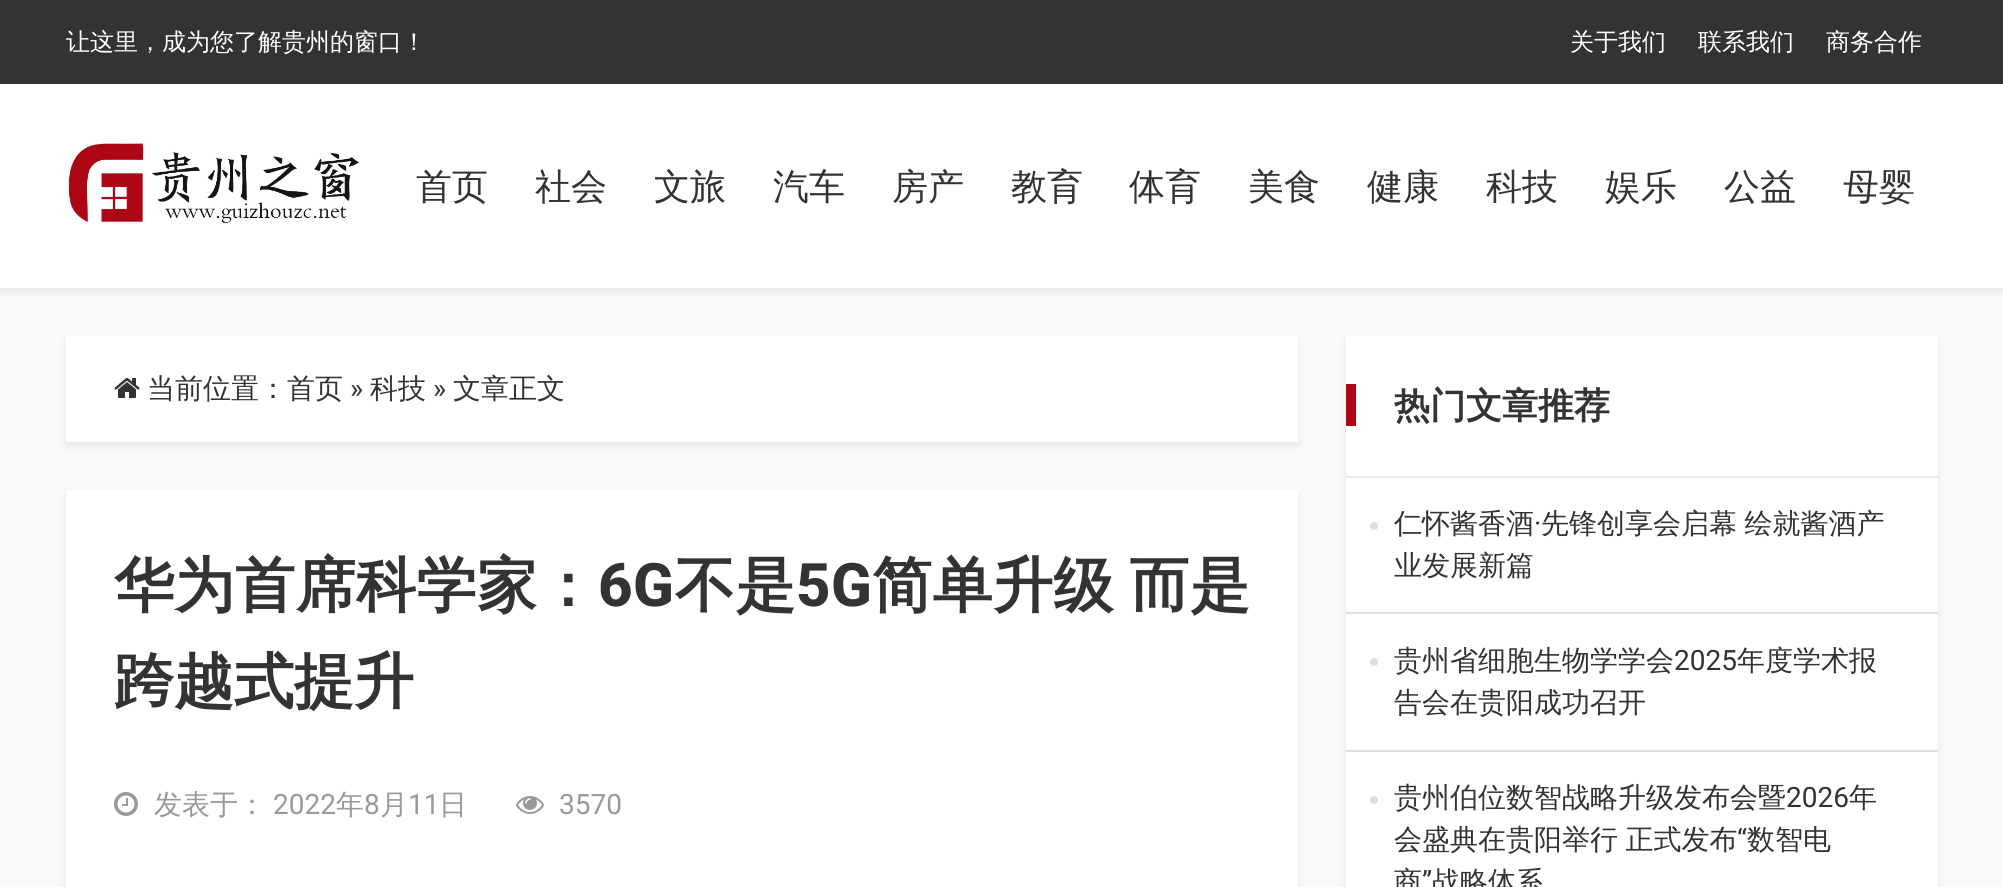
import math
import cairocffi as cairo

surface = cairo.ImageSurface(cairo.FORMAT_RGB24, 2003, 887)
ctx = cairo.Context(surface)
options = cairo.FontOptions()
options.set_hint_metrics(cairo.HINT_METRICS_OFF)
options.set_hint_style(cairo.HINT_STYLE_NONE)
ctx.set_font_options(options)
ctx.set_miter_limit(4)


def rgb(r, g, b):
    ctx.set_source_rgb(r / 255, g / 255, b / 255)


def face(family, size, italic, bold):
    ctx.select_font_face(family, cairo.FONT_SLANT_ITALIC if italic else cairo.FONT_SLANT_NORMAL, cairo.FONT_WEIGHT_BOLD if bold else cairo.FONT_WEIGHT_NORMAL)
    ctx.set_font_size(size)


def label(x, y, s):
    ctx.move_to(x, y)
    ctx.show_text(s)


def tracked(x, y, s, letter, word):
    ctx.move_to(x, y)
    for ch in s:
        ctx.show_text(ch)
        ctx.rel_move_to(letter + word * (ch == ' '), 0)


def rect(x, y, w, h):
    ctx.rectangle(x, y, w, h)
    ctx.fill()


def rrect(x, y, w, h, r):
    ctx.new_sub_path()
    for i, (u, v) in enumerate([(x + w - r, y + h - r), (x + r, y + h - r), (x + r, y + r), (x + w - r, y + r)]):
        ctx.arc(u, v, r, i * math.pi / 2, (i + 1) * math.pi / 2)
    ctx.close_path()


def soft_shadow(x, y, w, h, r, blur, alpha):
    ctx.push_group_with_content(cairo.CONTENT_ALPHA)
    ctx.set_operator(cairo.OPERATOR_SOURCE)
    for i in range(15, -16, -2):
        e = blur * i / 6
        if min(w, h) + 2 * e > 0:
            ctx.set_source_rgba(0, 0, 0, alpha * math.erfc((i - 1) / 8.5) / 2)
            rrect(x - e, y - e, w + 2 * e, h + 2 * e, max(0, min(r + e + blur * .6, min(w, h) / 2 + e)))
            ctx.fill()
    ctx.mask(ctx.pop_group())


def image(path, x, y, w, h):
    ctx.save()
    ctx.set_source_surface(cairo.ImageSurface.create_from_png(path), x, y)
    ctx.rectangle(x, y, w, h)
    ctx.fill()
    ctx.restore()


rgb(249, 249, 249)
ctx.paint()
rgb(51, 51, 51)
rect(0, 0, 2003, 84)
face('WenQuanYi Zen Hei Medium', 24, 0, 0)
rgb(255, 255, 255)
label(66, 50, '让这里，成为您了解贵州的窗口！')
label(1570, 50, '关于我们')
label(1698, 50, '联系我们')
label(1826, 50, '商务合作')
rgb(0, 0, 0)
soft_shadow(0, 88, 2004, 204, 0, 4, 0.07)
rgb(255, 255, 255)
rect(0, 84, 2003, 204)
image('image0.png', 66, 143, 293, 81)
face('WenQuanYi Zen Hei Medium', 36, 0, 0)
rgb(51, 51, 51)
label(416, 199, '首页')
label(535, 199, '社会')
label(654, 199, '文旅')
label(773, 199, '汽车')
label(892, 199, '房产')
label(1011, 199, '教育')
label(1129, 199, '体育')
label(1248, 199, '美食')
label(1367, 199, '健康')
label(1486, 199, '科技')
label(1605, 199, '娱乐')
label(1724, 199, '公益')
label(1843, 199, '母婴')
rgb(0, 0, 0)
soft_shadow(66, 340, 1232, 106, 0, 4, 0.07)
rgb(255, 255, 255)
rect(66, 336, 1232, 106)
image('image1.png', 114, 378, 26, 20)
face('WenQuanYi Zen Hei Medium', 28, 0, 0)
rgb(51, 51, 51)
label(147, 398, '当前位置：首页')
face('Roboto', 28, 0, 0)
label(350, 398, '»')
face('WenQuanYi Zen Hei Medium', 28, 0, 0)
label(370, 398, '科技')
face('Roboto', 28, 0, 0)
label(433, 398, '»')
face('WenQuanYi Zen Hei Medium', 28, 0, 0)
label(453, 398, '文章正文')
rgb(0, 0, 0)
soft_shadow(66, 494, 1232, 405, 0, 4, 0.07)
rgb(255, 255, 255)
rect(66, 490, 1232, 397)
face('WenQuanYi Zen Hei', 60, 0, 1)
rgb(51, 51, 51)
tracked(114, 606, '华为首席科学家：', 0.5, 0)
face('Roboto ExtraBold', 60, 0, 0)
tracked(598, 606, '6G', 0.5, 0)
face('WenQuanYi Zen Hei', 60, 0, 1)
tracked(675, 606, '不是', 0.5, 0)
face('Roboto ExtraBold', 60, 0, 0)
tracked(796, 606, '5G', 0.5, 0)
face('WenQuanYi Zen Hei', 60, 0, 1)
tracked(872, 606, '简单升级 而是', 0.5, -3)
label(114, 702, '跨越式提升')
image('image2.png', 114, 792, 24, 24)
face('WenQuanYi Zen Hei Medium', 28, 0, 0)
rgb(153, 153, 153)
label(154, 814, '发表于：')
face('Roboto', 28, 0, 0)
label(273, 814, '2022')
face('WenQuanYi Zen Hei Medium', 28, 0, 0)
label(336, 814, '年')
face('Roboto', 28, 0, 0)
label(364, 814, '8')
face('WenQuanYi Zen Hei Medium', 28, 0, 0)
label(380, 814, '月')
face('Roboto', 28, 0, 0)
label(408, 814, '11')
face('WenQuanYi Zen Hei Medium', 28, 0, 0)
label(439, 814, '日')
image('image3.png', 516, 796, 28, 18)
face('Roboto', 28, 0, 0)
label(559, 814, '3570')
rgb(0, 0, 0)
soft_shadow(1346, 340, 592, 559, 0, 4, 0.07)
rgb(255, 255, 255)
rect(1346, 336, 592, 551)
rgb(234, 234, 234)
rect(1346, 476, 592, 2)
rgb(173, 7, 21)
rect(1346, 384, 10, 42)
face('WenQuanYi Zen Hei', 36, 0, 1)
rgb(51, 51, 51)
label(1394, 418, '热门文章推荐')
rgb(223, 223, 223)
rect(1346, 612, 592, 2)
rgb(221, 221, 221)
ctx.new_path()
ctx.arc(1374, 526, 4, 0, 2 * math.pi)
ctx.fill()
face('WenQuanYi Zen Hei Medium', 28, 0, 0)
rgb(51, 51, 51)
label(1394, 533, '仁怀酱香酒')
face('Roboto', 28, 0, 0)
label(1534, 533, '·')
face('WenQuanYi Zen Hei Medium', 28, 0, 0)
tracked(1541, 533, '先锋创享会启幕 绘就酱酒产', 0, -1)
label(1394, 575, '业发展新篇')
rgb(223, 223, 223)
rect(1346, 750, 592, 2)
rgb(221, 221, 221)
ctx.new_path()
ctx.arc(1374, 662, 4, 0, 2 * math.pi)
ctx.fill()
rgb(51, 51, 51)
label(1394, 670, '贵州省细胞生物学学会')
face('Roboto', 28, 0, 0)
label(1674, 670, '2025')
face('WenQuanYi Zen Hei Medium', 28, 0, 0)
label(1737, 670, '年度学术报')
label(1394, 712, '告会在贵阳成功召开')
rgb(221, 221, 221)
ctx.new_path()
ctx.arc(1374, 800, 4, 0, 2 * math.pi)
ctx.fill()
rgb(51, 51, 51)
label(1394, 807, '贵州伯位数智战略升级发布会暨')
face('Roboto', 28, 0, 0)
label(1786, 807, '2026')
face('WenQuanYi Zen Hei Medium', 28, 0, 0)
label(1849, 807, '年')
tracked(1394, 849, '会盛典在贵阳举行 正式发布', 0, -1)
face('Roboto', 28, 0, 0)
label(1737, 849, '“')
face('WenQuanYi Zen Hei Medium', 28, 0, 0)
label(1747, 849, '数智电')
label(1394, 891, '商')
face('Roboto', 28, 0, 0)
label(1422, 891, '”')
face('WenQuanYi Zen Hei Medium', 28, 0, 0)
label(1432, 891, '战略体系')
surface.write_to_png('render.png')
